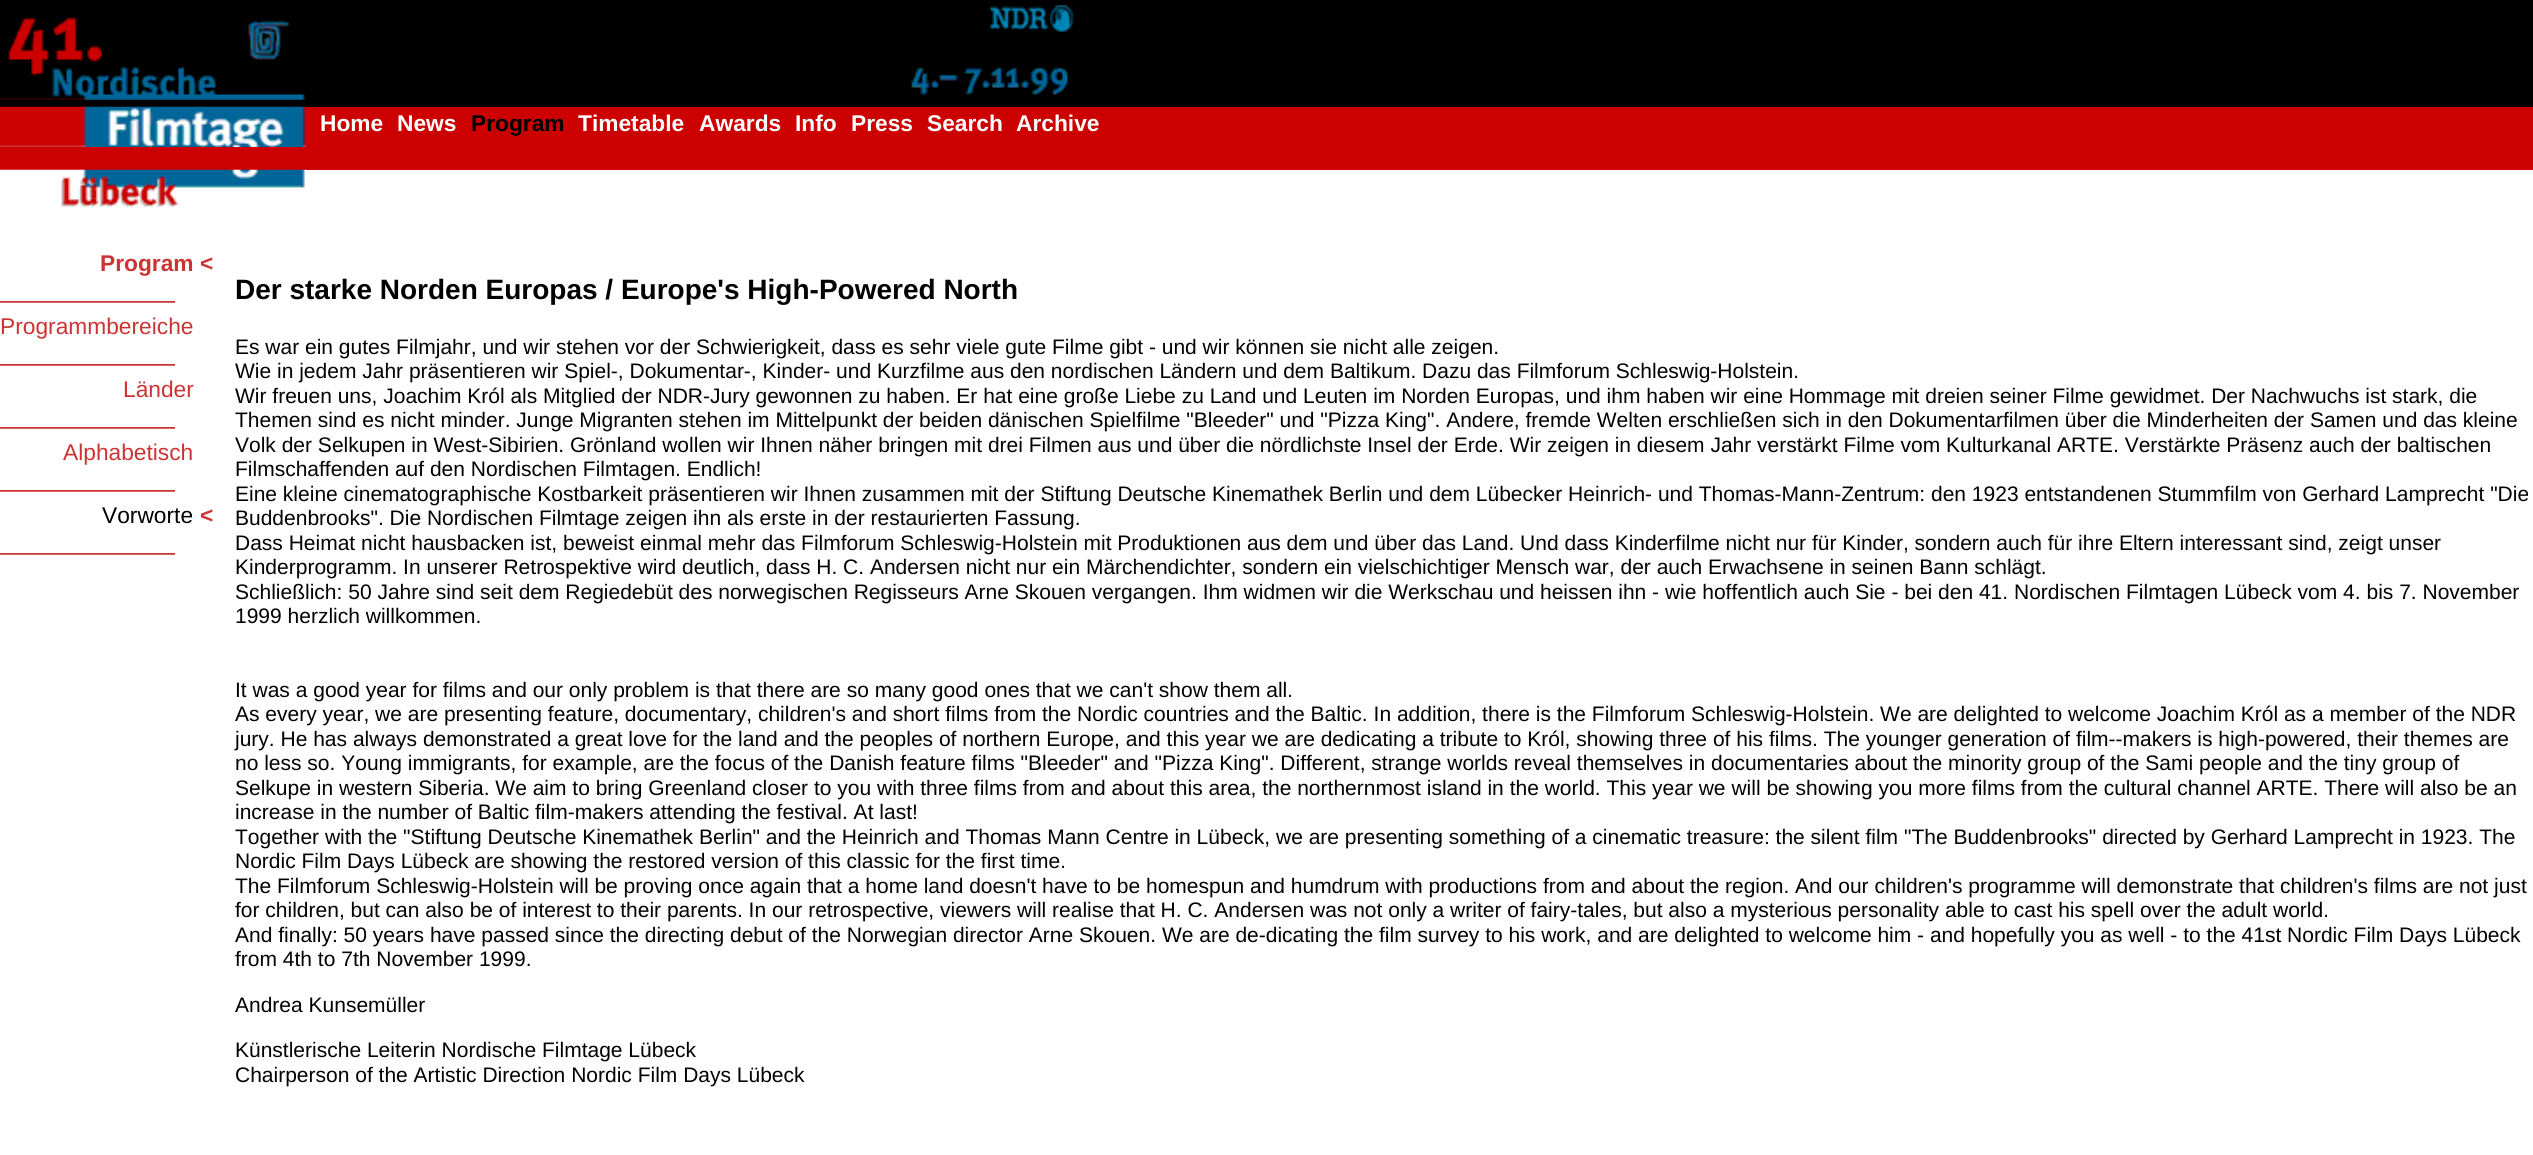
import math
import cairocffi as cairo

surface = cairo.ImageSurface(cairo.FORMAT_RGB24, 2533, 1155)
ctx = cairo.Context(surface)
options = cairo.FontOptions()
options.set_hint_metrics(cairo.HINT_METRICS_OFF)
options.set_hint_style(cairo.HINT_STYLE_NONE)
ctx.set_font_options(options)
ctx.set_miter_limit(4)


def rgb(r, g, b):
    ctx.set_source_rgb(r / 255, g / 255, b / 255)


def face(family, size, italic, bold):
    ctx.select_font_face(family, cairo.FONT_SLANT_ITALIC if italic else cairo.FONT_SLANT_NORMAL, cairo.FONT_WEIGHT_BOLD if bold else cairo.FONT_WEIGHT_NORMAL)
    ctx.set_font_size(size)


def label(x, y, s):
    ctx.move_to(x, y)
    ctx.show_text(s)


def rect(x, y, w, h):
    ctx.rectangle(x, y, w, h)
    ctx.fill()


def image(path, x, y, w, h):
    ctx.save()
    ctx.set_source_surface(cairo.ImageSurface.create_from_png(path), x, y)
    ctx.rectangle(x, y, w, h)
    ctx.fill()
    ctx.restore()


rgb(255, 255, 255)
ctx.paint()
rgb(0, 0, 0)
rect(0, 0, 306, 107)
rect(306, 0, 2227, 107)
image('image0.png', 0, 17, 307, 83)
image('image1.png', 990, 5, 84, 27)
image('image2.png', 911, 67, 157, 28)
rgb(204, 0, 0)
rect(0, 147, 306, 23)
rect(306, 107, 2227, 63)
image('image3.png', 0, 106, 307, 41)
face('Liberation Sans', 22.75, 0, 1)
rgb(255, 255, 255)
label(320, 131, 'Home')
label(397, 131, 'News')
rgb(0, 0, 0)
label(471, 131, 'Program')
rgb(255, 255, 255)
label(578, 131, 'Timetable')
label(699, 131, 'Awards')
label(795, 131, 'Info')
label(851, 131, 'Press')
label(927, 131, 'Search')
label(1016, 131, 'Archive')
image('image4.png', 0, 169, 307, 38)
rgb(204, 51, 51)
label(100, 271, 'Program')
label(200, 271, '<')
image('image5.png', 0, 301, 175, 2)
face('Liberation Sans', 22.75, 0, 0)
label(0, 334, 'Programmbereiche')
image('image5.png', 0, 364, 175, 2)
label(123, 397, 'Länder')
image('image5.png', 0, 427, 175, 2)
label(63, 460, 'Alphabetisch')
image('image5.png', 0, 490, 175, 2)
rgb(0, 0, 0)
label(102, 523, 'Vorworte')
face('Liberation Sans', 22.75, 0, 1)
rgb(204, 51, 51)
label(200, 523, '<')
image('image5.png', 0, 553, 175, 2)
face('Liberation Sans', 28, 0, 1)
rgb(0, 0, 0)
label(235, 299, 'Der starke Norden Europas / Europe\'s High-Powered North')
face('Liberation Sans', 21, 0, 0)
label(235, 354, 'Es war ein gutes Filmjahr, und wir stehen vor der Schwierigkeit, dass es sehr viele gute Filme gibt - und wir können sie nicht alle zeigen.')
label(235, 378, 'Wie in jedem Jahr präsentieren wir Spiel-, Dokumentar-, Kinder- und Kurzfilme aus den nordischen Ländern und dem Baltikum. Dazu das Filmforum Schleswig-Holstein.')
label(235, 403, 'Wir freuen uns, Joachim Król als Mitglied der NDR-Jury gewonnen zu haben. Er hat eine große Liebe zu Land und Leuten im Norden Europas, und ihm haben wir eine Hommage mit dreien seiner Filme gewidmet. Der Nachwuchs ist stark, die')
label(235, 427, 'Themen sind es nicht minder. Junge Migranten stehen im Mittelpunkt der beiden dänischen Spielfilme "Bleeder" und "Pizza King". Andere, fremde Welten erschließen sich in den Dokumentarfilmen über die Minderheiten der Samen und das kleine')
label(235, 452, 'Volk der Selkupen in West-Sibirien. Grönland wollen wir Ihnen näher bringen mit drei Filmen aus und über die nördlichste Insel der Erde. Wir zeigen in diesem Jahr verstärkt Filme vom Kulturkanal ARTE. Verstärkte Präsenz auch der baltischen')
label(235, 476, 'Filmschaffenden auf den Nordischen Filmtagen. Endlich!')
label(235, 501, 'Eine kleine cinematographische Kostbarkeit präsentieren wir Ihnen zusammen mit der Stiftung Deutsche Kinemathek Berlin und dem Lübecker Heinrich- und Thomas-Mann-Zentrum: den 1923 entstandenen Stummfilm von Gerhard Lamprecht "Die')
label(235, 525, 'Buddenbrooks". Die Nordischen Filmtage zeigen ihn als erste in der restaurierten Fassung.')
label(235, 550, 'Dass Heimat nicht hausbacken ist, beweist einmal mehr das Filmforum Schleswig-Holstein mit Produktionen aus dem und über das Land. Und dass Kinderfilme nicht nur für Kinder, sondern auch für ihre Eltern interessant sind, zeigt unser')
label(235, 574, 'Kinderprogramm. In unserer Retrospektive wird deutlich, dass H. C. Andersen nicht nur ein Märchendichter, sondern ein vielschichtiger Mensch war, der auch Erwachsene in seinen Bann schlägt.')
label(235, 599, 'Schließlich: 50 Jahre sind seit dem Regiedebüt des norwegischen Regisseurs Arne Skouen vergangen. Ihm widmen wir die Werkschau und heissen ihn - wie hoffentlich auch Sie - bei den 41. Nordischen Filmtagen Lübeck vom 4. bis 7. November')
label(235, 623, '1999 herzlich willkommen.')
label(235, 697, 'It was a good year for films and our only problem is that there are so many good ones that we can\'t show them all.')
label(235, 721, 'As every year, we are presenting feature, documentary, children\'s and short films from the Nordic countries and the Baltic. In addition, there is the Filmforum Schleswig-Holstein. We are delighted to welcome Joachim Król as a member of the NDR')
label(235, 746, 'jury. He has always demonstrated a great love for the land and the peoples of northern Europe, and this year we are dedicating a tribute to Król, showing three of his films. The younger generation of film--makers is high-powered, their themes are')
label(235, 770, 'no less so. Young immigrants, for example, are the focus of the Danish feature films "Bleeder" and "Pizza King". Different, strange worlds reveal themselves in documentaries about the minority group of the Sami people and the tiny group of')
label(235, 795, 'Selkupe in western Siberia. We aim to bring Greenland closer to you with three films from and about this area, the northernmost island in the world. This year we will be showing you more films from the cultural channel ARTE. There will also be an')
label(235, 819, 'increase in the number of Baltic film-makers attending the festival. At last!')
label(235, 844, 'Together with the "Stiftung Deutsche Kinemathek Berlin" and the Heinrich and Thomas Mann Centre in Lübeck, we are presenting something of a cinematic treasure: the silent film "The Buddenbrooks" directed by Gerhard Lamprecht in 1923. The')
label(235, 868, 'Nordic Film Days Lübeck are showing the restored version of this classic for the first time.')
label(235, 893, 'The Filmforum Schleswig-Holstein will be proving once again that a home land doesn\'t have to be homespun and humdrum with productions from and about the region. And our children\'s programme will demonstrate that children\'s films are not just')
label(235, 917, 'for children, but can also be of interest to their parents. In our retrospective, viewers will realise that H. C. Andersen was not only a writer of fairy-tales, but also a mysterious personality able to cast his spell over the adult world.')
label(235, 942, 'And finally: 50 years have passed since the directing debut of the Norwegian director Arne Skouen. We are de-dicating the film survey to his work, and are delighted to welcome him - and hopefully you as well - to the 41st Nordic Film Days Lübeck')
label(235, 966, 'from 4th to 7th November 1999.')
label(235, 1012, 'Andrea Kunsemüller')
label(235, 1057, 'Künstlerische Leiterin Nordische Filmtage Lübeck')
label(235, 1082, 'Chairperson of the Artistic Direction Nordic Film Days Lübeck')
surface.write_to_png('render.png')
